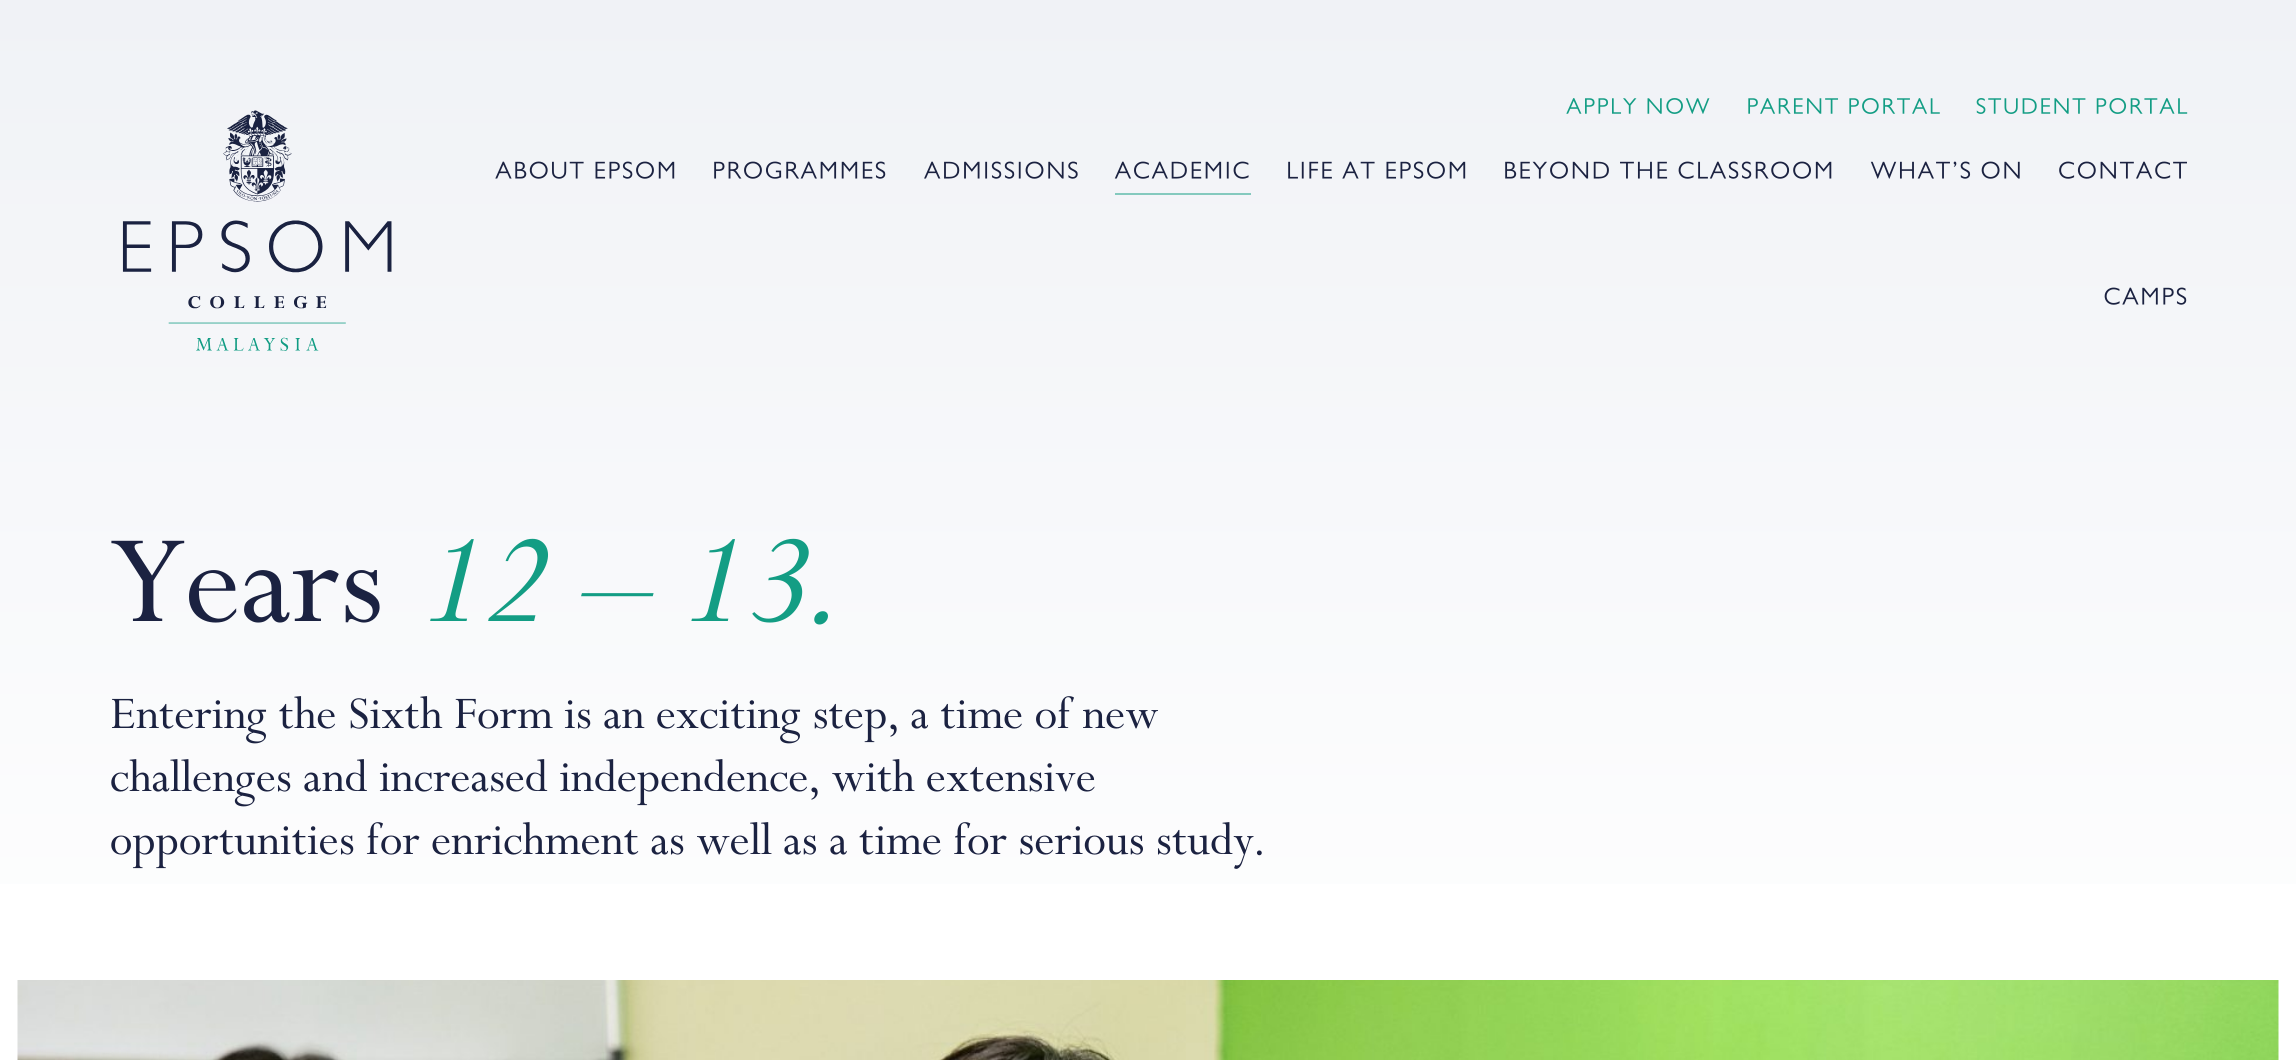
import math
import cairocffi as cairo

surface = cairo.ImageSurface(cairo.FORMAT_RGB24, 2296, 1060)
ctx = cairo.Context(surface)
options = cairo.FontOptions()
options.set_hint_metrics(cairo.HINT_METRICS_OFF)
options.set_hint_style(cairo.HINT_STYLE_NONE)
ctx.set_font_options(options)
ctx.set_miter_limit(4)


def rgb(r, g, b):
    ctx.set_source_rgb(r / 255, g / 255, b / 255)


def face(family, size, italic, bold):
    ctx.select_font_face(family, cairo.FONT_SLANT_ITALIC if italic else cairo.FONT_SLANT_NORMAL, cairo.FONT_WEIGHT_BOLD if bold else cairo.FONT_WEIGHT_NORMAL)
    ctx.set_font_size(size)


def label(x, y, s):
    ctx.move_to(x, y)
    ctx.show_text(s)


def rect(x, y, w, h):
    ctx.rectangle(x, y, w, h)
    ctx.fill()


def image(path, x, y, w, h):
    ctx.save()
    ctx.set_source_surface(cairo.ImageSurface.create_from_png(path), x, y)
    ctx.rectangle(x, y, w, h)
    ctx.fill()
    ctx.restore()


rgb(255, 255, 255)
ctx.paint()
gradient = cairo.LinearGradient(1148, 0, 1148, 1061)
gradient.add_color_stop_rgba(0, 0.941, 0.949, 0.965, 1)
gradient.add_color_stop_rgba(1, 1, 1, 1, 1)
ctx.set_source(gradient)
rect(0, 0, 2296, 884)
image('image0.png', 122, 110, 270, 241)
image('image1.png', 1566, 98, 144, 16)
image('image2.png', 1748, 98, 192, 16)
image('image3.png', 1976, 98, 212, 16)
image('image4.png', 495, 161, 180, 18)
image('image5.png', 714, 161, 172, 18)
image('image6.png', 924, 161, 154, 18)
rgb(132, 201, 190)
rect(1115, 193, 136, 2)
image('image7.png', 1114, 161, 135, 18)
image('image8.png', 1288, 161, 178, 18)
image('image9.png', 1505, 161, 327, 18)
image('image10.png', 1870, 161, 150, 18)
image('image11.png', 2059, 161, 128, 18)
image('image12.png', 2104, 287, 83, 18)
face('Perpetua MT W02', 140, 0, 0)
rgb(27, 34, 65)
label(110, 621, 'Years')
face('Perpetua MT W02', 140, 1, 0)
rgb(19, 157, 132)
label(416, 621, '12 – 13.')
face('Perpetua MT W02', 50.75, 0, 0)
rgb(27, 34, 65)
label(110, 728, 'Entering the Sixth Form is an exciting step, a time of new')
label(110, 791, 'challenges and increased independence, with extensive')
label(110, 854, 'opportunities for enrichment as well as a time for serious study.')
image('image13.png', 17, 980, 2262, 80)
surface.write_to_png('render.png')
